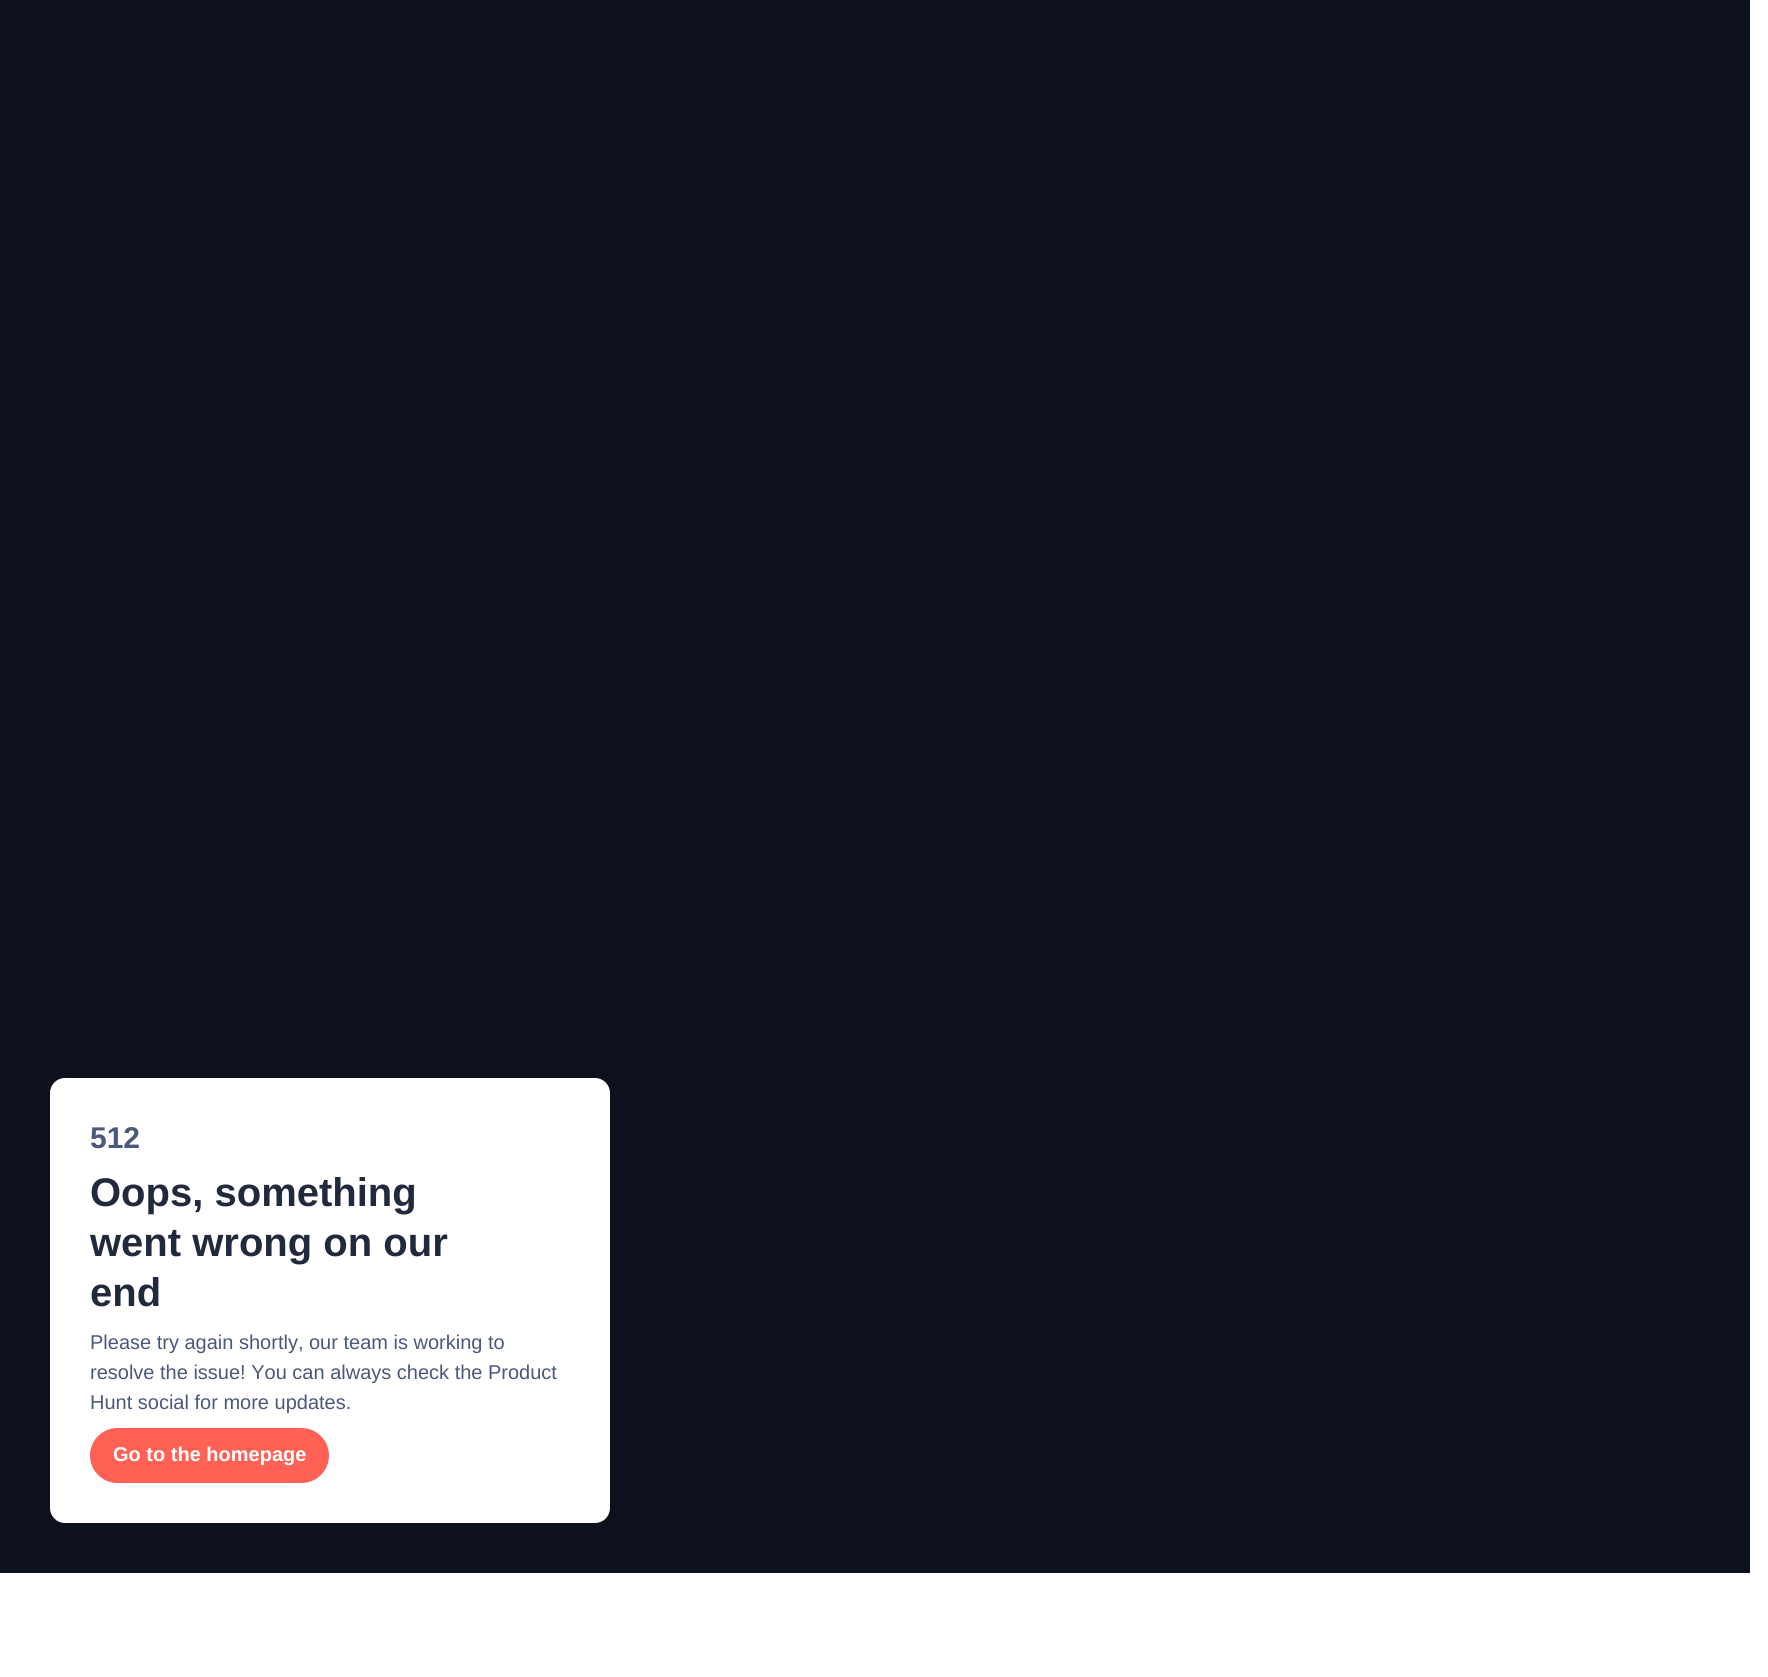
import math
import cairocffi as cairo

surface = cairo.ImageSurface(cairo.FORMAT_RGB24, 1768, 1677)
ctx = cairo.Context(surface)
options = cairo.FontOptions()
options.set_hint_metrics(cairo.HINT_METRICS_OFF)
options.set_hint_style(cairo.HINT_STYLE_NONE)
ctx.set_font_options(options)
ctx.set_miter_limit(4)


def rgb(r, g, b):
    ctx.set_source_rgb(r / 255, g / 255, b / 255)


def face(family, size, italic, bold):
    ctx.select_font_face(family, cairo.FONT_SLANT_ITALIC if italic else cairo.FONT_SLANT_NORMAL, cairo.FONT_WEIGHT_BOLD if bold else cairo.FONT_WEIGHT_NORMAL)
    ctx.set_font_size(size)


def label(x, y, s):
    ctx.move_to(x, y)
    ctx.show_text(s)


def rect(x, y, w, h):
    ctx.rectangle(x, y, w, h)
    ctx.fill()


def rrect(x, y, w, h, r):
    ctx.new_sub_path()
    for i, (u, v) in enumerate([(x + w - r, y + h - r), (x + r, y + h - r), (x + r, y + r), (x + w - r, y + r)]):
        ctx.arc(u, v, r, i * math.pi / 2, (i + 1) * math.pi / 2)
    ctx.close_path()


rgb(255, 255, 255)
ctx.paint()
rgb(12, 17, 29)
rect(0, 0, 1750, 1573)
rgb(255, 255, 255)
rrect(50, 1078, 560, 445, 15)
ctx.fill()
face('Liberation Sans', 30, 0, 1)
rgb(75, 88, 124)
label(90, 1148, '512')
face('Liberation Sans', 40, 0, 1)
rgb(33, 41, 60)
label(90, 1206, 'Oops, something')
label(90, 1256, 'went wrong on our')
label(90, 1306, 'end')
face('Liberation Sans', 20, 0, 0)
rgb(75, 88, 124)
label(90, 1349, 'Please try again shortly, our team is working to')
label(90, 1379, 'resolve the issue! You can always check the Product')
label(90, 1409, 'Hunt social for more updates.')
rgb(255, 97, 84)
rrect(91.5, 1429.5, 236, 52, 26)
ctx.fill_preserve()
ctx.set_line_width(3)
ctx.stroke()
face('Liberation Sans', 20, 0, 1)
rgb(255, 255, 255)
label(113, 1461, 'Go to the homepage')
surface.write_to_png('render.png')
